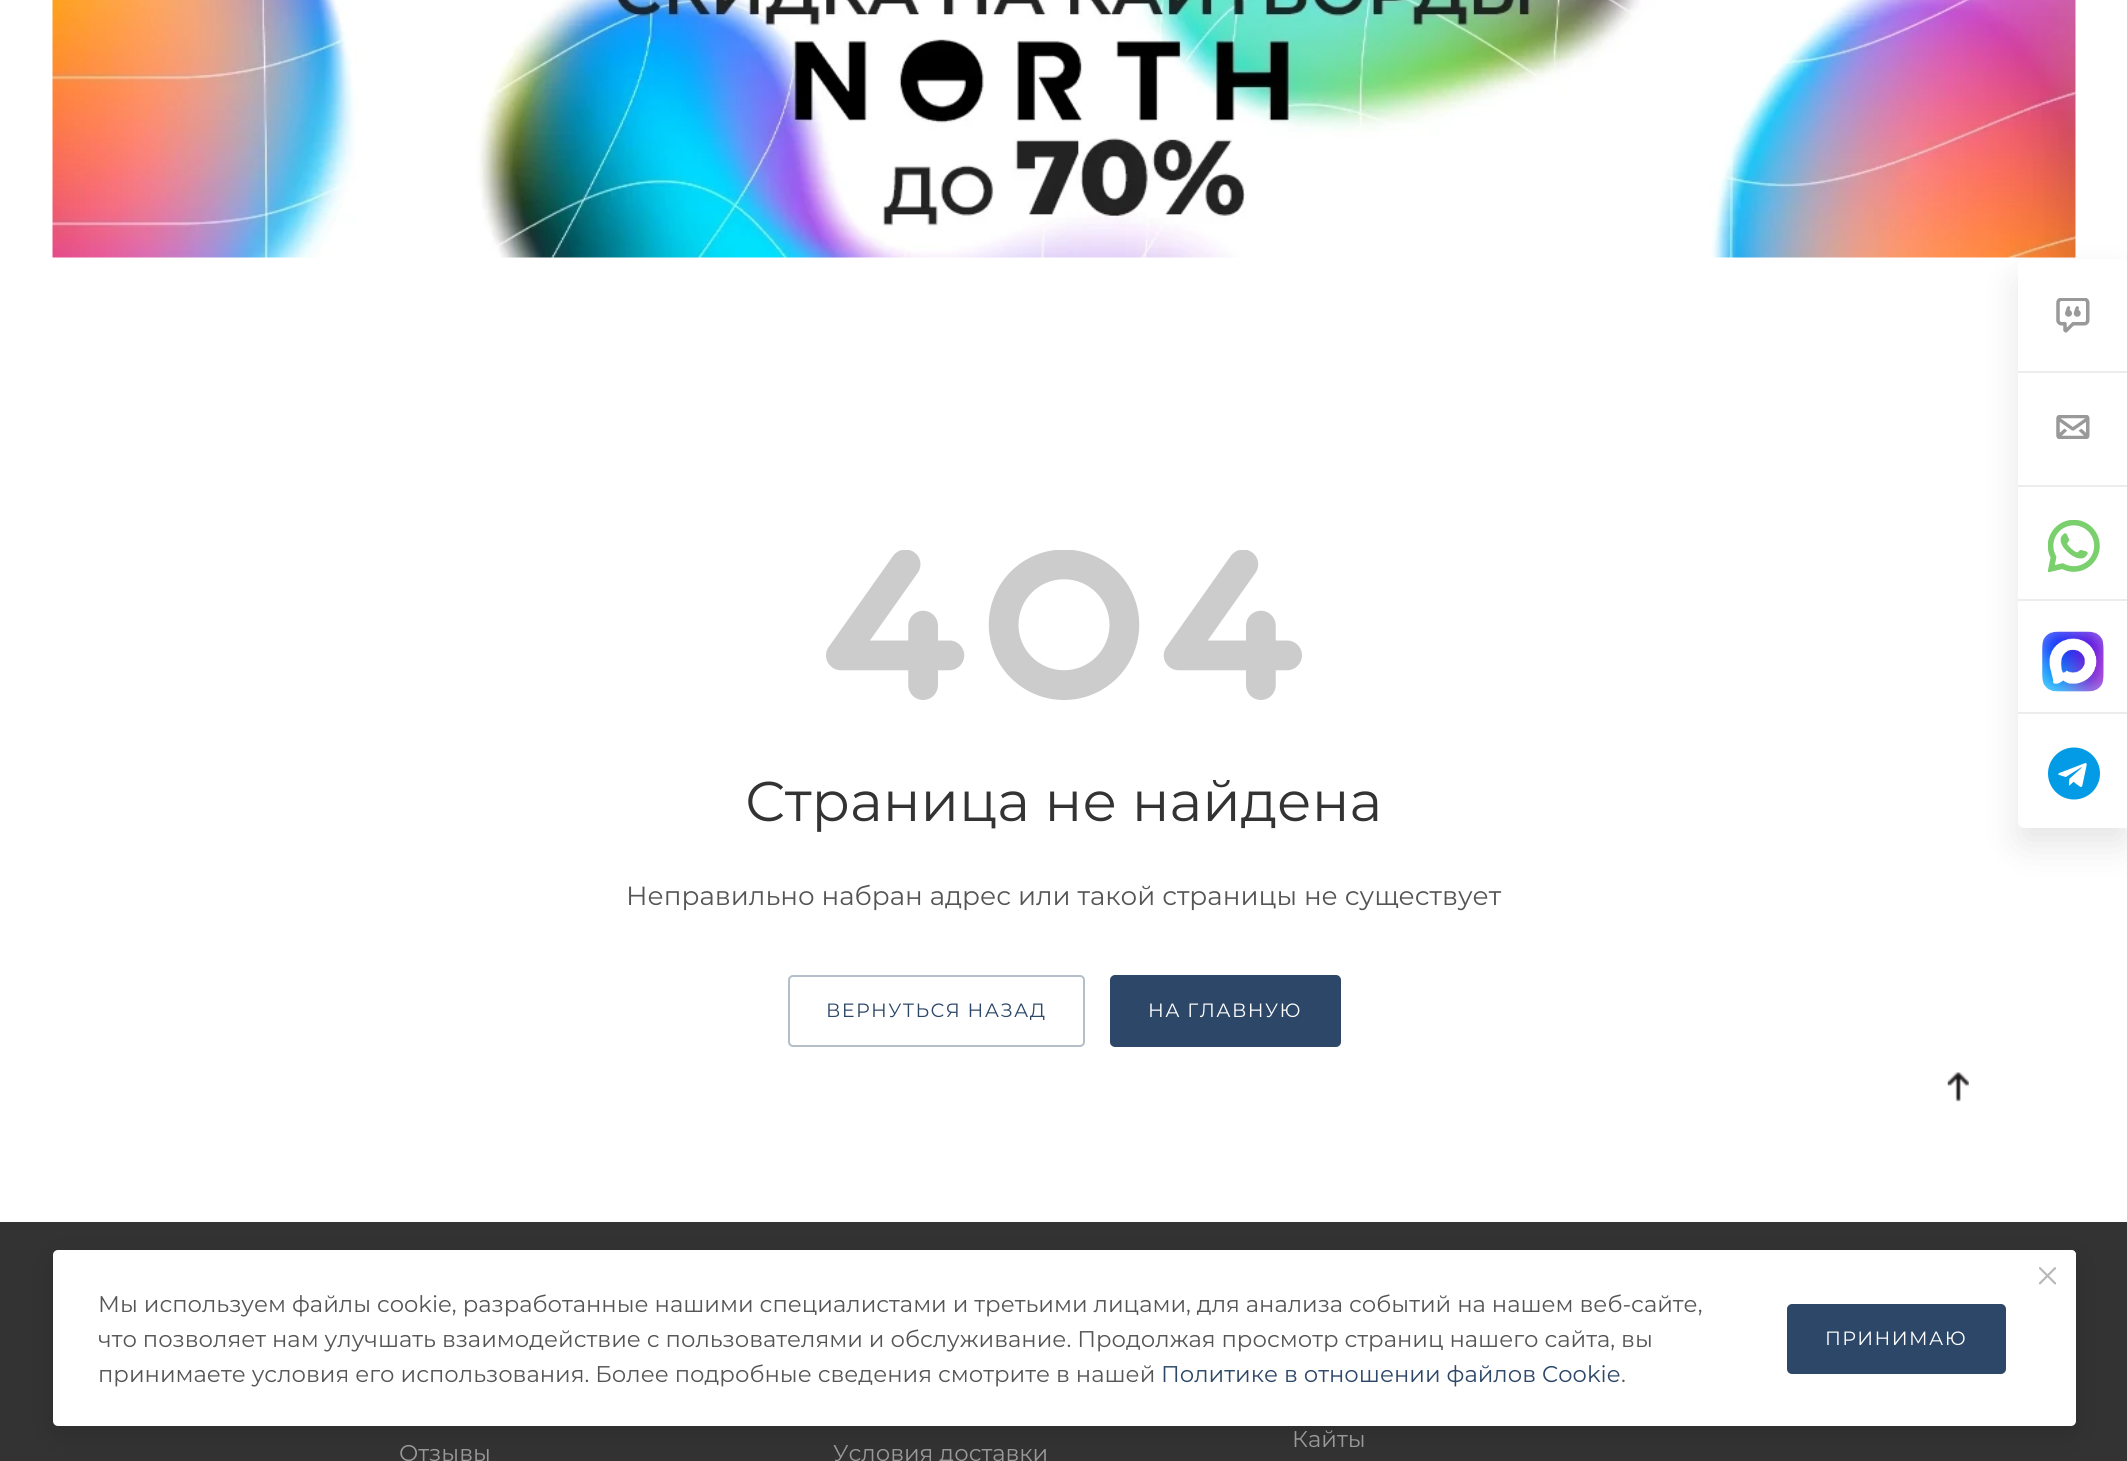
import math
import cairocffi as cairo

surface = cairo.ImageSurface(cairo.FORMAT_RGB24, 2127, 1461)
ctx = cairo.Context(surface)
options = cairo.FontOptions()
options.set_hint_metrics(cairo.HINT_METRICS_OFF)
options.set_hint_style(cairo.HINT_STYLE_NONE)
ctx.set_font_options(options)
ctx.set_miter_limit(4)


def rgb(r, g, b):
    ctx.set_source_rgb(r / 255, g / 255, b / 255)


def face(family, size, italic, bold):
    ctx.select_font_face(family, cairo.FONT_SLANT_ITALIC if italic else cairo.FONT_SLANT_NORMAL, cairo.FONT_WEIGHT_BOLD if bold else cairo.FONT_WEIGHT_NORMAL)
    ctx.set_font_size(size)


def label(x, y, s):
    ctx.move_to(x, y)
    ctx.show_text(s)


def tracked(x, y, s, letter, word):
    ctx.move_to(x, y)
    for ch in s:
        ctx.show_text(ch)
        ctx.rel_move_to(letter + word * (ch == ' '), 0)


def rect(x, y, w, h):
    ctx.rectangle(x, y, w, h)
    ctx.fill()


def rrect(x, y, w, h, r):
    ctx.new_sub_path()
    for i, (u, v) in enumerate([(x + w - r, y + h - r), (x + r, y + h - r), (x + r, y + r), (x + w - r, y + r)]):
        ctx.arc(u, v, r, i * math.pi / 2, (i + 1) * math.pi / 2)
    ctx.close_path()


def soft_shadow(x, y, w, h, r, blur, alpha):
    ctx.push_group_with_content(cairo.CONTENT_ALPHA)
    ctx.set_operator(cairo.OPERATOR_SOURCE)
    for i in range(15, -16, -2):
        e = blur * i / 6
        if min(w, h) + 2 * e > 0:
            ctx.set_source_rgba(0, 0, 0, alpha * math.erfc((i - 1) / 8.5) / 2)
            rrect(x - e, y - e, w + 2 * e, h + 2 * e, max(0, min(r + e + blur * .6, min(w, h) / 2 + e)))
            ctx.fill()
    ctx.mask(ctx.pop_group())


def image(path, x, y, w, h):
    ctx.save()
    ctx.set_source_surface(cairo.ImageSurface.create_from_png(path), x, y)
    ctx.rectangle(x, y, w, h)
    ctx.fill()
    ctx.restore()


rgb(255, 255, 255)
ctx.paint()
image('image0.png', 52, 0, 2024, 258)
image('image1.png', 826, 550, 476, 150)
face('Montserrat', 56, 0, 0)
rgb(51, 51, 51)
label(745, 821, 'Страница не найдена')
face('Montserrat', 26.25, 0, 0)
rgb(85, 85, 85)
label(626, 905, 'Неправильно набран адрес или такой страницы не существует')
rrect(789, 976, 295, 70, 4)
rgb(181, 191, 202)
ctx.stroke()
face('Montserrat', 19.25, 0, 0)
rgb(44, 71, 103)
tracked(826, 1017, 'ВЕРНУТЬСЯ НАЗАД', 1.4, 0)
rrect(1111, 976, 229, 70, 4)
ctx.fill_preserve()
ctx.stroke()
rgb(255, 255, 255)
tracked(1148, 1017, 'НА ГЛАВНУЮ', 1.4, 0)
rgb(0, 0, 0)
soft_shadow(2018, 277, 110, 568, 7, 17.5, 0.1)
rgb(255, 255, 255)
ctx.new_path()
ctx.move_to(2025, 259)
ctx.line_to(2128, 259)
ctx.line_to(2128, 828)
ctx.line_to(2025, 828)
ctx.curve_to(2021, 828, 2018, 825, 2018, 821)
ctx.line_to(2018, 266)
ctx.curve_to(2018, 262, 2021, 259, 2025, 259)
ctx.close_path()
ctx.fill()
rgb(236, 236, 236)
rect(2018, 371, 109, 2)
image('image2.png', 2056, 298, 34, 35)
rect(2018, 485, 109, 2)
image('image3.png', 2056, 415, 34, 24)
rect(2018, 599, 109, 2)
image('image4.png', 2048, 520, 52, 52)
rect(2018, 712, 109, 2)
image('image5.png', 2042, 631, 62, 61)
image('image6.png', 2048, 747, 52, 53)
image('image7.png', 1947, 1072, 22, 30)
rgb(51, 51, 51)
rect(0, 1222, 2127, 239)
rgb(0, 0, 0)
soft_shadow(53, 1258, 2023, 177, 5, 17.5, 0.12)
rgb(255, 255, 255)
rrect(53, 1250, 2023, 176, 5)
ctx.fill()
ctx.new_path()
ctx.move_to(2020, 1250)
ctx.line_to(2071, 1250)
ctx.curve_to(2074, 1250, 2076, 1252, 2076, 1255)
ctx.line_to(2076, 1306)
ctx.line_to(2025, 1306)
ctx.curve_to(2022, 1306, 2020, 1304, 2020, 1301)
ctx.close_path()
ctx.fill()
image('image8.png', 2039, 1267, 17, 18)
face('Montserrat', 22.75, 0, 0)
rgb(85, 85, 85)
label(98, 1312, 'Мы используем файлы cookie, разработанные нашими специалистами и третьими лицами, для анализа событий на нашем веб-сайте,')
label(98, 1347, 'что позволяет нам улучшать взаимодействие с пользователями и обслуживание. Продолжая просмотр страниц нашего сайта, вы')
label(98, 1382, 'принимаете условия его использования. Более подробные сведения смотрите в нашей')
rgb(44, 71, 103)
label(1161, 1382, 'Политике в отношении файлов Cookie')
rgb(85, 85, 85)
label(1621, 1382, '.')
rgb(44, 71, 103)
rrect(1788, 1305, 217, 68, 4)
ctx.fill_preserve()
ctx.stroke()
face('Montserrat', 19.25, 0, 0)
rgb(255, 255, 255)
tracked(1825, 1345, 'ПРИНИМАЮ', 1.4, 0)
face('Montserrat', 22.75, 0, 0)
rgb(153, 153, 153)
label(1292, 1447, 'Кайты')
label(399, 1461, 'Отзывы')
label(833, 1461, 'Условия доставки')
surface.write_to_png('render.png')
